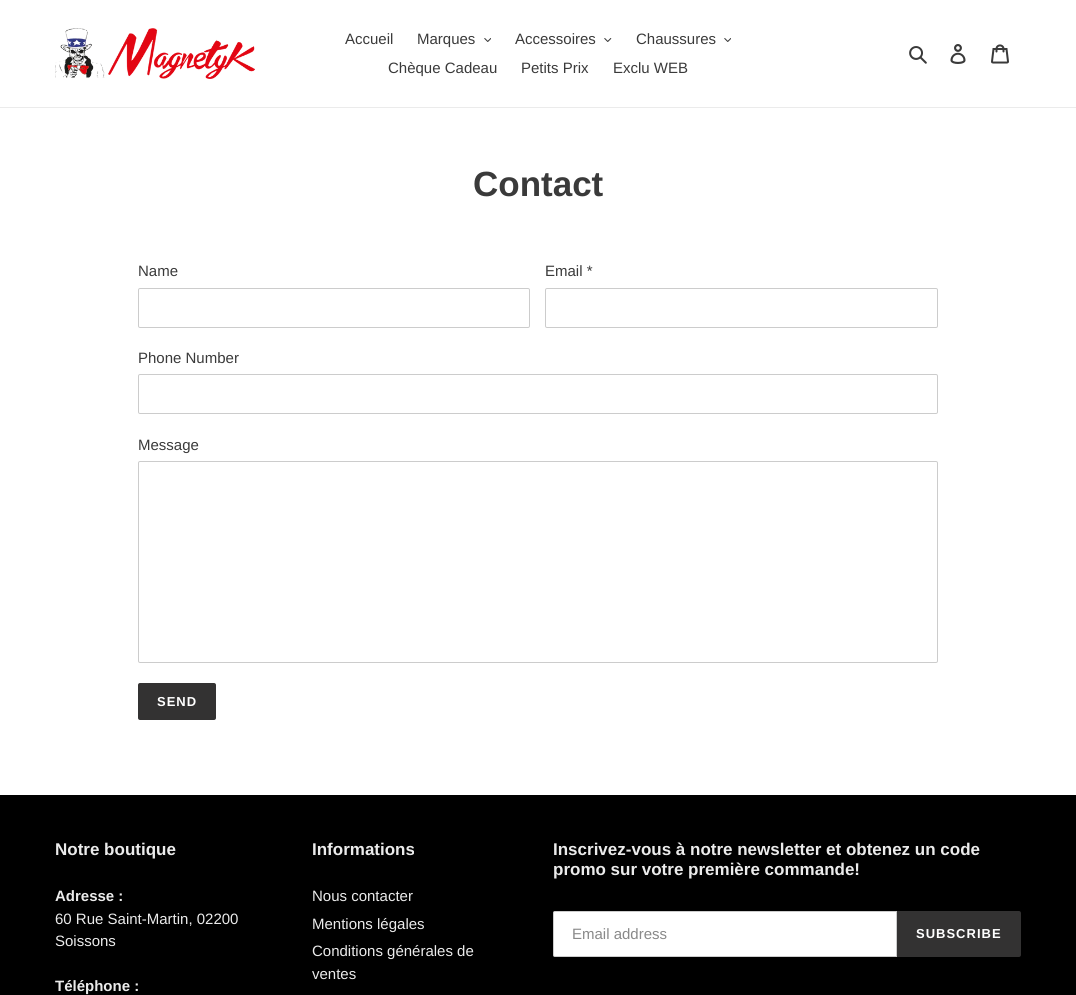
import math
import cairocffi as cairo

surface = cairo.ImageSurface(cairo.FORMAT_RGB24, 1076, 995)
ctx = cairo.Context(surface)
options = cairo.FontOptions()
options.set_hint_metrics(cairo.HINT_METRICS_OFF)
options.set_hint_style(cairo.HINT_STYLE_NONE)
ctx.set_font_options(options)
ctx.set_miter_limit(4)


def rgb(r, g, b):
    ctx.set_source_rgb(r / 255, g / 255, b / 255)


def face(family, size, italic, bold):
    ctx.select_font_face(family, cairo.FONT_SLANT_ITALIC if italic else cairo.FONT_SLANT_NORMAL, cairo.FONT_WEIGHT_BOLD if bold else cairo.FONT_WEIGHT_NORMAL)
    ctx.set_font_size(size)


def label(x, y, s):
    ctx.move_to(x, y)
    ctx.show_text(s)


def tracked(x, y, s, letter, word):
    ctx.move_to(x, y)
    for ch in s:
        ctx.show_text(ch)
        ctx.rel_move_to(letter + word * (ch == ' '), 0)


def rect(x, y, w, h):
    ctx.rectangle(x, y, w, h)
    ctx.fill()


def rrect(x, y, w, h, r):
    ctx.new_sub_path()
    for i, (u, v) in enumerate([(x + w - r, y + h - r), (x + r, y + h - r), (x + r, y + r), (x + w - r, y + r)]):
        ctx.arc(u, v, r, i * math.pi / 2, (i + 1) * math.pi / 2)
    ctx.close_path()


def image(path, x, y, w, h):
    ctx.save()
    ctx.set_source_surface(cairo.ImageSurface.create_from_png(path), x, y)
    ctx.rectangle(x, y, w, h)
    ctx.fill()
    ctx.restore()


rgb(255, 255, 255)
ctx.paint()
rgb(235, 235, 235)
rect(0, 107, 1076, 1)
image('image0.png', 55, 28, 200, 51)
face('Liberation Sans', 15, 0, 0)
rgb(58, 58, 58)
label(345, 44, 'Accueil')
label(417, 44, 'Marques')
image('image1.png', 484, 38, 7, 4)
label(515, 44, 'Accessoires')
image('image2.png', 604, 38, 8, 4)
label(636, 44, 'Chaussures')
image('image1.png', 724, 38, 7, 4)
label(388, 73, 'Chèque Cadeau')
label(521, 73, 'Petits Prix')
label(613, 73, 'Exclu WEB')
image('image3.png', 909, 46, 18, 18)
image('image4.png', 950, 44, 16, 20)
image('image5.png', 991, 44, 18, 20)
face('Liberation Sans', 35, 0, 1)
label(473, 196, 'Contact')
face('Liberation Sans', 15, 0, 0)
label(138, 276, 'Name')
rrect(138.5, 288.5, 391, 39, 1.5)
rgb(204, 204, 204)
ctx.set_line_width(1)
ctx.stroke()
rgb(58, 58, 58)
label(545, 276, 'Email *')
rrect(545.5, 288.5, 392, 39, 1.5)
rgb(204, 204, 204)
ctx.stroke()
rgb(58, 58, 58)
label(138, 363, 'Phone Number')
rrect(138.5, 374.5, 799, 39, 1.5)
rgb(204, 204, 204)
ctx.stroke()
rgb(58, 58, 58)
label(138, 450, 'Message')
rrect(138.5, 461.5, 799, 201, 1.5)
rgb(204, 204, 204)
ctx.stroke()
rgb(51, 50, 50)
rrect(138, 683, 78, 37, 2)
ctx.fill()
face('Liberation Sans', 13, 0, 1)
rgb(255, 255, 255)
tracked(157, 706, 'SEND', 1, 0)
rgb(0, 0, 0)
rect(0, 795, 1076, 200)
face('Liberation Sans', 17, 0, 1)
rgb(235, 235, 235)
label(55, 855, 'Notre boutique')
face('Liberation Sans', 15, 0, 1)
label(55, 901, 'Adresse :')
face('Liberation Sans', 15, 0, 0)
label(55, 924, '60 Rue Saint-Martin, 02200')
label(55, 946, 'Soissons')
face('Liberation Sans', 15, 0, 1)
label(55, 991, 'Téléphone :')
face('Liberation Sans', 17, 0, 1)
label(312, 855, 'Informations')
face('Liberation Sans', 15, 0, 0)
label(312, 901, 'Nous contacter')
label(312, 929, 'Mentions légales')
label(312, 956, 'Conditions générales de')
label(312, 979, 'ventes')
face('Liberation Sans', 17, 0, 1)
label(553, 855, 'Inscrivez-vous à notre newsletter et obtenez un code')
label(553, 875, 'promo sur votre première commande!')
rgb(255, 255, 255)
ctx.new_path()
ctx.move_to(555, 911.5)
ctx.line_to(896.5, 911.5)
ctx.line_to(896.5, 956.5)
ctx.line_to(555, 956.5)
ctx.curve_to(554, 956.5, 553.5, 956, 553.5, 955)
ctx.line_to(553.5, 913)
ctx.curve_to(553.5, 912, 554, 911.5, 555, 911.5)
ctx.close_path()
ctx.fill_preserve()
rgb(204, 204, 204)
ctx.stroke()
face('Liberation Sans', 15, 0, 0)
rgb(137, 137, 137)
label(572, 939, 'Email address')
rgb(51, 50, 50)
ctx.new_path()
ctx.move_to(897, 911)
ctx.line_to(1019, 911)
ctx.curve_to(1020, 911, 1021, 912, 1021, 913)
ctx.line_to(1021, 955)
ctx.curve_to(1021, 956, 1020, 957, 1019, 957)
ctx.line_to(897, 957)
ctx.close_path()
ctx.fill()
face('Liberation Sans', 13, 0, 1)
rgb(255, 255, 255)
tracked(916, 938, 'SUBSCRIBE', 1, 0)
surface.write_to_png('render.png')
